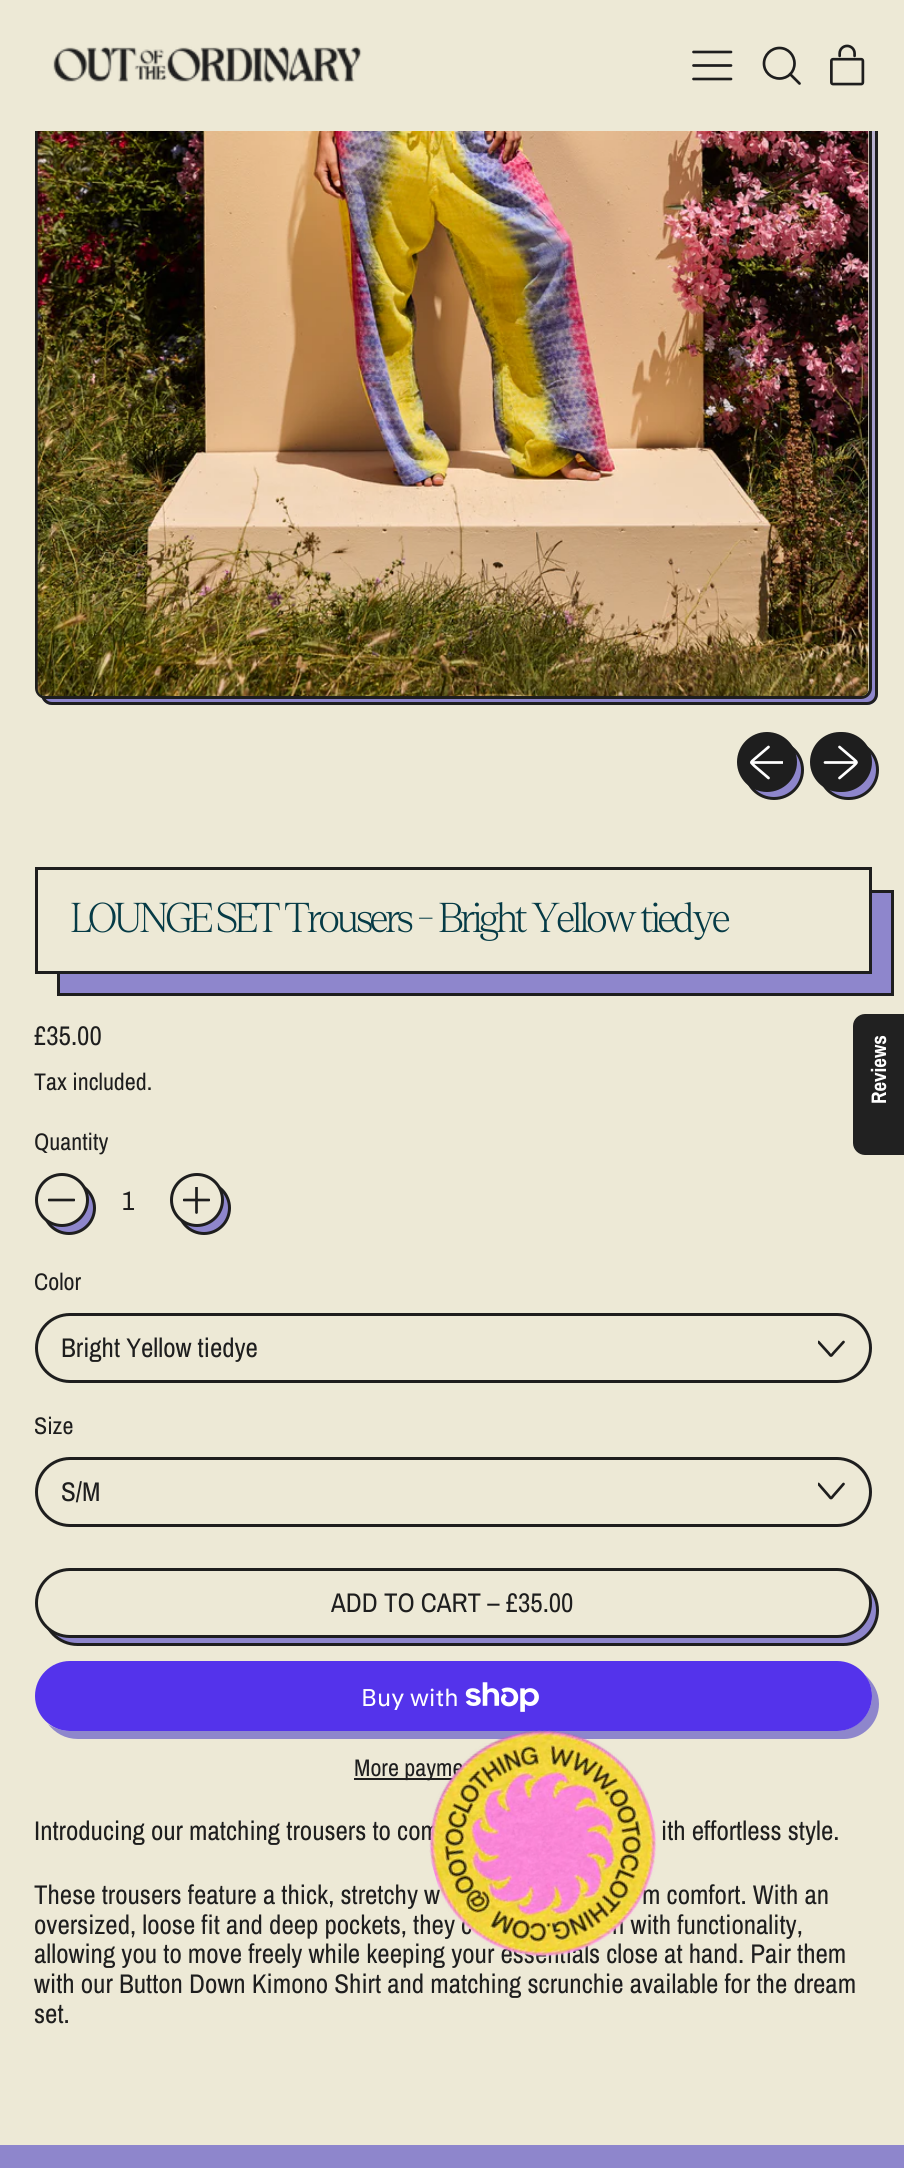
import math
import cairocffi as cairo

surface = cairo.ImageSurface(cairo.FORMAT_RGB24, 904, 2168)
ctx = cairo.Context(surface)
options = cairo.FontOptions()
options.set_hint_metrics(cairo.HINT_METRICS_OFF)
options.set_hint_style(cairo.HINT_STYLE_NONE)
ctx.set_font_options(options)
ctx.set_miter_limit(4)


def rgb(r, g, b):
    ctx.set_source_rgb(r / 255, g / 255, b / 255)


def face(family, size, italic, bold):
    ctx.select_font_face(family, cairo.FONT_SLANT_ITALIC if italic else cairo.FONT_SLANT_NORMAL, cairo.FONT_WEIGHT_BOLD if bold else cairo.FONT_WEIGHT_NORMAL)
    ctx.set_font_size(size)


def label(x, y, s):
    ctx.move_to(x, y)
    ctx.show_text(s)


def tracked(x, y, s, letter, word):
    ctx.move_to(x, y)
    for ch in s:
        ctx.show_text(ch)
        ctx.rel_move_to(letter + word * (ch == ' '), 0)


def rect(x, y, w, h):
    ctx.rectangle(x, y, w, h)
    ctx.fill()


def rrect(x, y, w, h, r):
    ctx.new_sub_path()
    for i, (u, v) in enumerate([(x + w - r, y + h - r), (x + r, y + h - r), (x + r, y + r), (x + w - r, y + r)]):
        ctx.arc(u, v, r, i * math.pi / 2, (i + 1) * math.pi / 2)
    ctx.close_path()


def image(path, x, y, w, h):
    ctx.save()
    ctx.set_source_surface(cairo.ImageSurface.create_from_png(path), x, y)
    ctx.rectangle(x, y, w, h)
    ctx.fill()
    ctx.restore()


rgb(237, 233, 214)
ctx.paint()
gradient = cairo.LinearGradient(459, -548, 459, 705)
gradient.add_color_stop_rgba(0, 0.929, 0.914, 0.839, 1)
gradient.add_color_stop_rgba(1, 0.557, 0.525, 0.8, 1)
ctx.set_source(gradient)
rrect(41, -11, 837, 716, 11)
ctx.fill()
rrect(42.5, -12.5, 834, 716, 9.5)
rgb(30, 30, 30)
ctx.set_line_width(3)
ctx.stroke()
rgb(237, 233, 214)
rrect(36.5, -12.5, 834, 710, 9.5)
ctx.fill_preserve()
rgb(30, 30, 30)
ctx.stroke()
rgb(237, 233, 214)
rect(35, 0, 843, 131)
image('image0.png', 53, 46, 309, 37)
ctx.new_path()
ctx.move_to(731, 79)
ctx.line_to(693.5, 79)
ctx.move_to(731, 65.5)
ctx.line_to(693.5, 65.5)
ctx.move_to(731, 52)
ctx.line_to(693.5, 52)
rgb(30, 30, 30)
ctx.set_line_width(2.7)
ctx.set_line_cap(cairo.LINE_CAP_ROUND)
ctx.set_line_join(cairo.LINE_JOIN_ROUND)
ctx.stroke()
ctx.new_path()
ctx.move_to(764, 63.5)
ctx.curve_to(764, 72, 771, 78.5, 779.5, 78.5)
ctx.curve_to(788, 78.5, 794.5, 72, 794.5, 63.5)
ctx.curve_to(794.5, 55, 788, 48, 779.5, 48)
ctx.curve_to(771, 48, 764, 55, 764, 63.5)
ctx.close_path()
ctx.move_to(799.5, 83.5)
ctx.line_to(790, 74)
ctx.stroke()
image('image1.png', 830, 44, 35, 42)
image('image2.png', 37, 131, 832, 565)
rgb(142, 134, 204)
ctx.arc(774, 770, 28.5, 0, 2 * math.pi)
ctx.fill_preserve()
rgb(30, 30, 30)
ctx.set_line_width(3)
ctx.set_line_cap(cairo.LINE_CAP_BUTT)
ctx.set_line_join(cairo.LINE_JOIN_MITER)
ctx.stroke()
ctx.arc(767, 762, 28.5, 0, 2 * math.pi)
ctx.fill_preserve()
ctx.stroke()
ctx.save()
ctx.rectangle(750, 746, 33, 33)
ctx.clip()
ctx.new_path()
ctx.move_to(751.5, 762.5)
ctx.line_to(783, 762.5)
rgb(255, 255, 255)
ctx.set_line_width(2.7)
ctx.set_line_cap(cairo.LINE_CAP_ROUND)
ctx.set_line_join(cairo.LINE_JOIN_ROUND)
ctx.stroke()
ctx.restore()
ctx.new_path()
ctx.move_to(768.5, 778)
ctx.line_to(754.5, 766)
ctx.curve_to(750.5, 762, 750.5, 762.5, 754.5, 759)
ctx.line_to(768.5, 747)
rgb(255, 255, 255)
ctx.set_line_width(2.7)
ctx.set_line_cap(cairo.LINE_CAP_ROUND)
ctx.set_line_join(cairo.LINE_JOIN_ROUND)
ctx.stroke()
rgb(142, 134, 204)
rrect(819.5, 741.5, 58, 57, 28.5)
ctx.fill_preserve()
rgb(30, 30, 30)
ctx.set_line_width(3)
ctx.set_line_cap(cairo.LINE_CAP_BUTT)
ctx.set_line_join(cairo.LINE_JOIN_MITER)
ctx.stroke()
rrect(811.5, 733.5, 59, 57, 28.5)
ctx.fill_preserve()
ctx.stroke()
ctx.new_path()
ctx.move_to(856.5, 762.5)
ctx.line_to(825, 762.5)
ctx.move_to(839.5, 778)
ctx.line_to(853.5, 766)
ctx.curve_to(857.5, 762, 857.5, 762.5, 853.5, 759)
ctx.line_to(839.5, 747)
rgb(255, 255, 255)
ctx.set_line_width(2.7)
ctx.set_line_cap(cairo.LINE_CAP_ROUND)
ctx.set_line_join(cairo.LINE_JOIN_ROUND)
ctx.stroke()
rgb(142, 134, 204)
ctx.rectangle(58.5, 891.5, 834, 103)
ctx.fill_preserve()
rgb(30, 30, 30)
ctx.set_line_width(3)
ctx.set_line_cap(cairo.LINE_CAP_BUTT)
ctx.set_line_join(cairo.LINE_JOIN_MITER)
ctx.stroke()
rgb(237, 233, 214)
rect(57, 890, 812, 81)
ctx.rectangle(36.5, 868.5, 834, 104)
rgb(30, 30, 30)
ctx.stroke()
face('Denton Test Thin', 40.5, 0, 0)
rgb(6, 59, 70)
tracked(71, 932, 'LOUNGE SET Trousers - Bright Yellow tiedye', -2, 0)
face('Archivo Narrow', 27, 0, 0)
rgb(30, 30, 30)
label(34, 1045, '£35.00')
face('Archivo Narrow', 24, 0, 0)
label(34, 1090, 'Tax included.')
label(34, 1150, 'Quantity')
rgb(142, 134, 204)
ctx.new_path()
ctx.arc(69, 1208, 25.5, 0, 2 * math.pi)
ctx.fill_preserve()
rgb(30, 30, 30)
ctx.stroke()
rgb(237, 233, 214)
ctx.arc(62, 1200, 25.5, 0, 2 * math.pi)
ctx.fill_preserve()
rgb(30, 30, 30)
ctx.stroke()
ctx.save()
ctx.rectangle(48, 1187, 27, 27)
ctx.clip()
ctx.new_path()
ctx.move_to(74, 1200)
ctx.line_to(49, 1200)
ctx.set_line_width(2.7)
ctx.set_line_cap(cairo.LINE_CAP_ROUND)
ctx.set_line_join(cairo.LINE_JOIN_ROUND)
ctx.stroke()
ctx.restore()
face('Archivo Narrow', 27, 0, 0)
label(122, 1210, '1')
rgb(142, 134, 204)
ctx.new_path()
ctx.arc(204, 1208, 25.5, 0, 2 * math.pi)
ctx.fill_preserve()
rgb(30, 30, 30)
ctx.stroke()
rgb(237, 233, 214)
ctx.arc(197, 1200, 25.5, 0, 2 * math.pi)
ctx.fill_preserve()
rgb(30, 30, 30)
ctx.stroke()
ctx.save()
ctx.rectangle(183, 1187, 27, 27)
ctx.clip()
ctx.new_path()
ctx.move_to(196.5, 1187.5)
ctx.line_to(196.5, 1212.5)
ctx.move_to(209, 1200)
ctx.line_to(184, 1200)
ctx.set_line_width(2.7)
ctx.set_line_cap(cairo.LINE_CAP_ROUND)
ctx.set_line_join(cairo.LINE_JOIN_ROUND)
ctx.stroke()
ctx.restore()
face('Archivo Narrow', 24, 0, 0)
label(34, 1290, 'Color')
ctx.save()
ctx.rectangle(818, 1335, 27, 27)
ctx.clip()
ctx.new_path()
ctx.move_to(818.5, 1342)
ctx.line_to(828.5, 1353)
ctx.curve_to(831.5, 1356.5, 830.5, 1356.5, 833.5, 1353)
ctx.line_to(843.5, 1342)
ctx.set_line_width(2.7)
ctx.set_line_cap(cairo.LINE_CAP_ROUND)
ctx.set_line_join(cairo.LINE_JOIN_ROUND)
ctx.stroke()
ctx.restore()
rrect(36.5, 1314.5, 834, 67, 33.5)
ctx.stroke()
face('Archivo Narrow', 27, 0, 0)
label(61, 1357, 'Bright Yellow tiedye')
face('Archivo Narrow', 24, 0, 0)
label(34, 1434, 'Size')
ctx.save()
ctx.rectangle(818, 1478, 27, 27)
ctx.clip()
ctx.new_path()
ctx.move_to(818.5, 1484)
ctx.line_to(828.5, 1495.5)
ctx.curve_to(831.5, 1499, 830.5, 1499, 833.5, 1495.5)
ctx.line_to(843.5, 1484)
ctx.set_line_width(2.7)
ctx.set_line_cap(cairo.LINE_CAP_ROUND)
ctx.set_line_join(cairo.LINE_JOIN_ROUND)
ctx.stroke()
ctx.restore()
rrect(36.5, 1458.5, 834, 67, 33.5)
ctx.stroke()
face('Archivo Narrow', 27, 0, 0)
label(61, 1501, 'S/M')
rgb(142, 134, 204)
rrect(43.5, 1576.5, 834, 68, 34)
ctx.fill_preserve()
rgb(30, 30, 30)
ctx.stroke()
rgb(237, 233, 214)
rrect(36.5, 1569.5, 834, 67, 33.5)
ctx.fill_preserve()
rgb(30, 30, 30)
ctx.stroke()
label(331, 1612, 'ADD TO CART – £35.00')
rgb(142, 134, 204)
ctx.new_path()
ctx.move_to(48, 1724)
ctx.curve_to(55, 1733, 65, 1739, 78, 1739)
ctx.line_to(844, 1739)
ctx.curve_to(863, 1739, 879, 1723, 879, 1704)
ctx.curve_to(879, 1692, 873, 1682, 865, 1675)
ctx.curve_to(869, 1681, 872, 1688, 872, 1696)
ctx.curve_to(872, 1715, 856, 1731, 836, 1731)
ctx.line_to(70, 1731)
ctx.curve_to(62, 1731, 54, 1728, 48, 1724)
ctx.close_path()
ctx.fill()
rgb(84, 51, 235)
rrect(35, 1661, 837, 70, 35)
ctx.fill()
face('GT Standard', 24, 0, 0)
rgb(255, 255, 255)
label(361, 1706, 'Buy with')
image('image3.png', 465, 1682, 74, 30)
rgb(30, 30, 30)
rect(354, 1778, 101, 2)
face('Archivo Narrow', 24, 0, 0)
label(354, 1776, 'More payme')
face('Archivo Narrow', 27, 0, 0)
label(34, 1840, 'Introducing our matching trousers to com')
label(661, 1840, 'ith effortless style.')
label(34, 1904, 'These trousers feature a thick, stretchy w')
label(642, 1904, 'm comfort. With an')
label(34, 1934, 'oversized, loose fit and deep pockets, they c')
label(612, 1934, 'n with functionality,')
label(34, 1963, 'allowing you to move freely while keeping your essentials close at hand. Pair them')
label(34, 1993, 'with our Button Down Kimono Shirt and matching scrunchie available for the dream')
label(34, 2023, 'set.')
image('image4.png', 429, 1730, 228, 227)
gradient = cairo.LinearGradient(452, 2145, 452, 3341)
gradient.add_color_stop_rgba(0.2, 0.557, 0.525, 0.8, 1)
gradient.add_color_stop_rgba(0.54, 0.929, 0.914, 0.839, 1)
gradient.add_color_stop_rgba(0.78, 0.612, 0.541, 0.8, 1)
ctx.set_source(gradient)
rect(0, 2145, 904, 23)
rgb(33, 33, 33)
ctx.new_path()
ctx.move_to(853, 1143)
ctx.line_to(853, 1026)
ctx.curve_to(853, 1019, 859, 1014, 865, 1014)
ctx.line_to(904, 1014)
ctx.line_to(904, 1155)
ctx.line_to(865, 1155)
ctx.curve_to(859, 1155, 853, 1150, 853, 1143)
ctx.close_path()
ctx.fill()
face('Archivo Narrow', 21, 0, 1)
rgb(255, 255, 255)
ctx.save()
ctx.translate(886, 1104)
ctx.rotate(-90 * math.pi / 180)
label(0, 0, 'Reviews')
ctx.restore()
surface.write_to_png('render.png')
